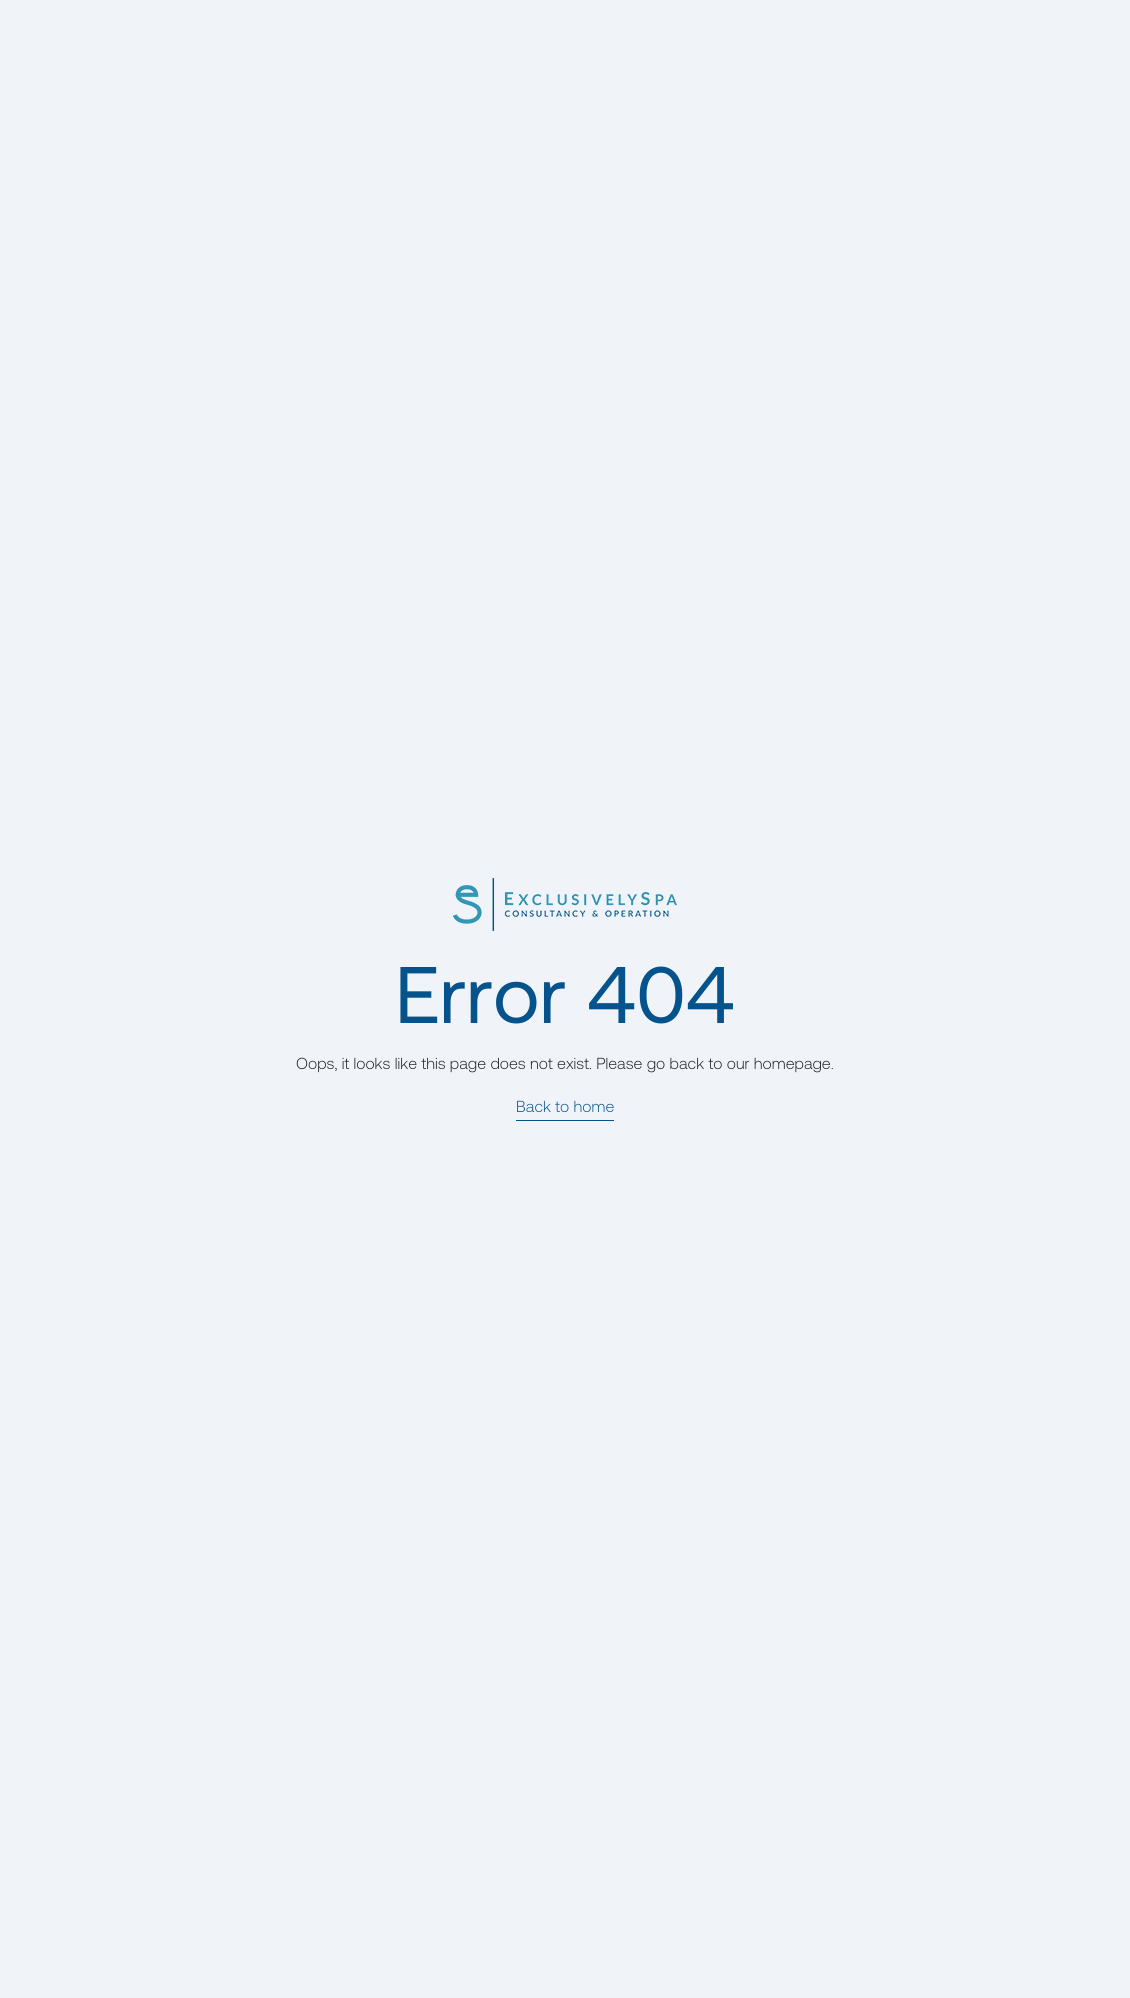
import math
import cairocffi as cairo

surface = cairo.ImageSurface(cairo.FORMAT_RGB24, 1130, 1998)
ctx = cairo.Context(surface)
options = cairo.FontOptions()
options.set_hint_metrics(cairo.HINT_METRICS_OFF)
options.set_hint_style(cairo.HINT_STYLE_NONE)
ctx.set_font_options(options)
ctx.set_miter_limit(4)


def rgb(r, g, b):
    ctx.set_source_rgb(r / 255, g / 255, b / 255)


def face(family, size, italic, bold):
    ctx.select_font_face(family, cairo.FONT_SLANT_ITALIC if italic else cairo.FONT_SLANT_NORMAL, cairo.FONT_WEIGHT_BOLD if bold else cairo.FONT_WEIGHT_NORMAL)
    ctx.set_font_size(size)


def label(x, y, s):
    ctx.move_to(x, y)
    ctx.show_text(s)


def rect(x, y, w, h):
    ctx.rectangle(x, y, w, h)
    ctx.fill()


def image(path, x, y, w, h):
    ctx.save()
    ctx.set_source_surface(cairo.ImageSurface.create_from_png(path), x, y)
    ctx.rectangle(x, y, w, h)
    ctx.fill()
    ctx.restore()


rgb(240, 244, 249)
ctx.paint()
image('image0.png', 453, 878, 224, 53)
face('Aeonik', 80, 0, 0)
rgb(4, 83, 140)
label(395, 1023, 'Error 404')
face('Aeonik Light', 16, 0, 0)
rgb(29, 29, 31)
label(296, 1069, 'Oops, it looks like this page does not exist. Please go back to our homepage.')
rgb(4, 83, 140)
rect(516, 1120, 98, 1)
label(516, 1112, 'Back to home')
surface.write_to_png('render.png')
